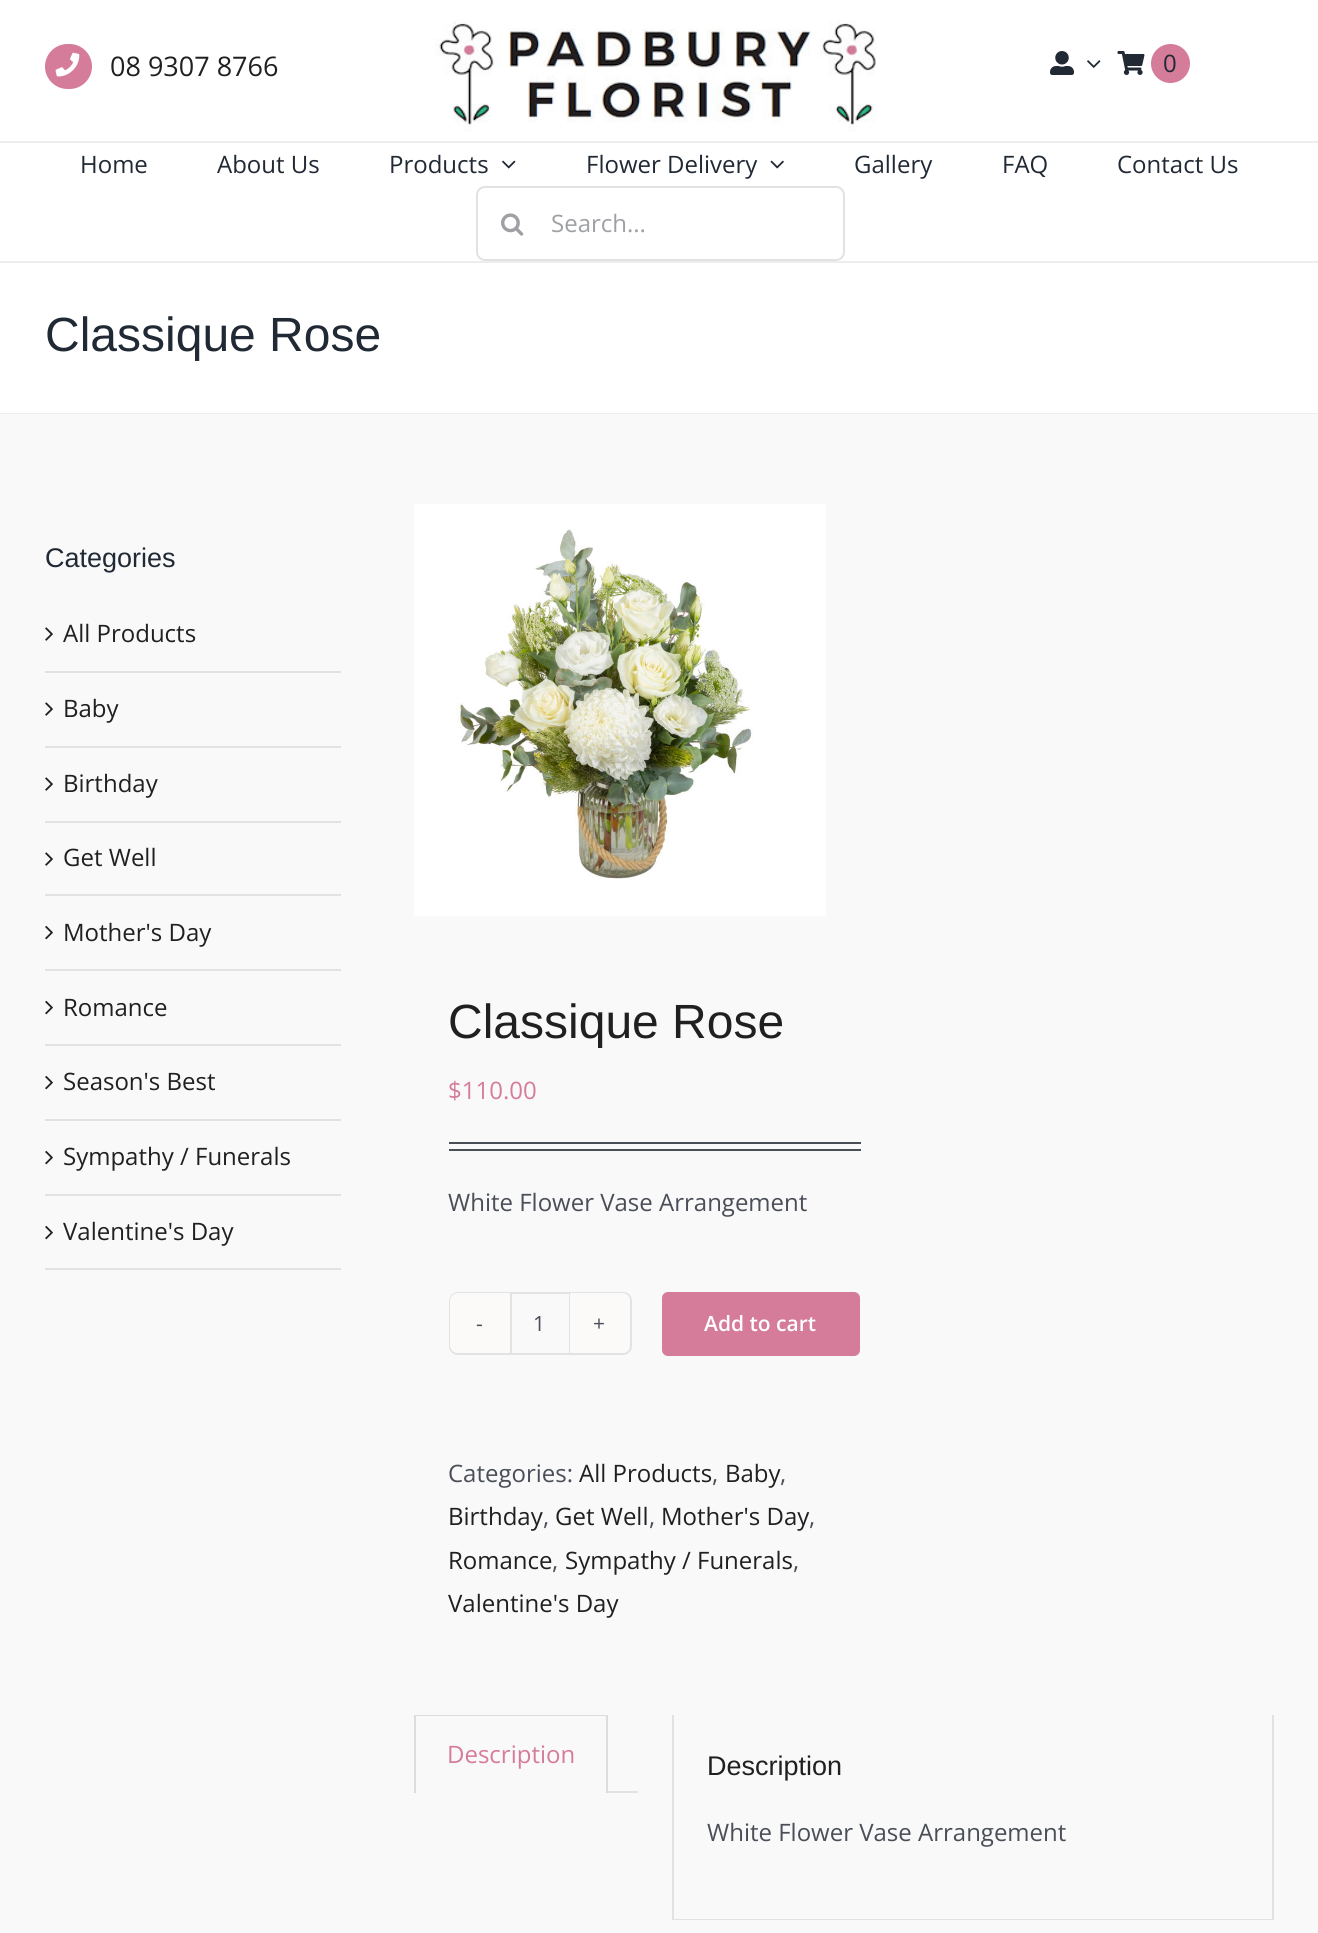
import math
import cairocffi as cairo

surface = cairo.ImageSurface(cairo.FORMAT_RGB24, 1318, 1933)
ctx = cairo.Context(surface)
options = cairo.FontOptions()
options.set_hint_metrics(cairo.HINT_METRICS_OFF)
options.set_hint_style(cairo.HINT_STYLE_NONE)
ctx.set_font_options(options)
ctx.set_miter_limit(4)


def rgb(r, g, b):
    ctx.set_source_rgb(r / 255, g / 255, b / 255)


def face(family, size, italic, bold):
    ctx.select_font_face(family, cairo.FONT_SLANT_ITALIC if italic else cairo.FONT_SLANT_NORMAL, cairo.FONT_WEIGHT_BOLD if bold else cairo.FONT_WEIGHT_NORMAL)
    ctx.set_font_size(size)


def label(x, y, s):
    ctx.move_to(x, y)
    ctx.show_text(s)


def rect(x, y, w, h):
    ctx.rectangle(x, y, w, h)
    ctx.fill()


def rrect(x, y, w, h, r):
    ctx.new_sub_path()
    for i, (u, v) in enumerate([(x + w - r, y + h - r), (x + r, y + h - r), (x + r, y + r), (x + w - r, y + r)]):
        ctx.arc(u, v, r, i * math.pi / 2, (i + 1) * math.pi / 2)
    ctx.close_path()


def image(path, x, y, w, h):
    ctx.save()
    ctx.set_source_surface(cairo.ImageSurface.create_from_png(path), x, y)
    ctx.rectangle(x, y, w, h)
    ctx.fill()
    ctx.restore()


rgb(255, 255, 255)
ctx.paint()
rgb(237, 237, 237)
rect(0, 141, 1318, 2)
rgb(213, 124, 154)
rrect(45, 44, 47, 45, 22.5)
ctx.fill()
image('image0.png', 55, 52, 25, 25)
face('Open Sans', 27, 0, 0)
rgb(32, 32, 32)
label(110, 76, '08 9307 8766')
image('image1.png', 435, 20, 441, 112)
image('image2.png', 1050, 51, 24, 24)
image('image3.png', 1087, 60, 14, 8)
image('image4.png', 1117, 51, 28, 24)
rgb(213, 124, 154)
ctx.arc(1170.5, 63.5, 19.5, 0, 2 * math.pi)
ctx.fill()
face('Open Sans', 24, 0, 0)
rgb(33, 41, 52)
label(1163, 72, '0')
label(80, 173, 'Home')
label(217, 173, 'About Us')
label(389, 173, 'Products')
image('image5.png', 502, 160, 14, 9)
label(586, 173, 'Flower Delivery')
image('image6.png', 770, 160, 14, 9)
label(854, 173, 'Gallery')
label(1002, 173, 'FAQ')
label(1117, 173, 'Contact Us')
rrect(477, 187, 367, 73, 8)
rgb(226, 226, 226)
ctx.stroke()
image('image7.png', 501, 213, 23, 23)
rgb(158, 160, 164)
label(551, 232, 'Search...')
rgb(237, 237, 237)
rect(0, 261, 1318, 2)
rect(0, 413, 1318, 1)
face('Arimo', 48, 0, 0)
rgb(33, 41, 52)
label(45, 351, 'Classique Rose')
rgb(249, 249, 249)
rect(0, 414, 1318, 1519)
face('Arimo', 27, 0, 0)
rgb(33, 41, 52)
label(45, 567, 'Categories')
rgb(226, 226, 226)
rect(45, 671, 296, 2)
image('image8.png', 45, 627, 8, 14)
face('Open Sans', 24, 0, 0)
rgb(32, 32, 32)
label(63, 642, 'All Products')
rgb(226, 226, 226)
rect(45, 746, 296, 2)
image('image8.png', 45, 702, 8, 14)
rgb(32, 32, 32)
label(63, 717, 'Baby')
rgb(226, 226, 226)
rect(45, 821, 296, 2)
image('image8.png', 45, 777, 8, 14)
rgb(32, 32, 32)
label(63, 792, 'Birthday')
rgb(226, 226, 226)
rect(45, 894, 296, 2)
image('image8.png', 45, 852, 8, 14)
rgb(32, 32, 32)
label(63, 866, 'Get Well')
rgb(226, 226, 226)
rect(45, 969, 296, 2)
image('image9.png', 45, 925, 8, 15)
rgb(32, 32, 32)
label(63, 941, 'Mother\'s Day')
rgb(226, 226, 226)
rect(45, 1044, 296, 2)
image('image9.png', 45, 1000, 8, 15)
rgb(32, 32, 32)
label(63, 1016, 'Romance')
rgb(226, 226, 226)
rect(45, 1119, 296, 2)
image('image9.png', 45, 1075, 8, 15)
rgb(32, 32, 32)
label(63, 1090, 'Season\'s Best')
rgb(226, 226, 226)
rect(45, 1194, 296, 2)
image('image9.png', 45, 1150, 8, 15)
rgb(32, 32, 32)
label(63, 1165, 'Sympathy / Funerals')
rgb(226, 226, 226)
rect(45, 1268, 296, 2)
image('image9.png', 45, 1225, 8, 15)
rgb(32, 32, 32)
label(63, 1240, 'Valentine\'s Day')
image('image10.png', 414, 504, 412, 412)
face('Arimo', 48, 0, 0)
label(448, 1038, 'Classique Rose')
face('Open Sans', 24, 0, 0)
rgb(213, 124, 154)
label(448, 1099, '$110.00')
rgb(74, 78, 87)
rect(449, 1142, 412, 2)
rect(449, 1149, 412, 2)
label(448, 1211, 'White Flower Vase Arrangement')
rrect(450, 1293, 181, 61, 8)
rgb(226, 226, 226)
ctx.stroke()
rgb(251, 250, 249)
ctx.new_path()
ctx.move_to(458, 1293)
ctx.line_to(510, 1293)
ctx.line_to(510, 1353)
ctx.line_to(458, 1353)
ctx.curve_to(453.5, 1353, 450, 1349.5, 450, 1345)
ctx.line_to(450, 1301)
ctx.curve_to(450, 1296.5, 453.5, 1293, 458, 1293)
ctx.close_path()
ctx.fill()
face('Open Sans', 21, 0, 0)
rgb(74, 78, 87)
label(476, 1331, '-')
rgb(226, 226, 226)
rect(569, 1293, 1, 60)
rect(510, 1293, 2, 60)
rgb(74, 78, 87)
label(533, 1331, '1')
rgb(251, 250, 249)
ctx.new_path()
ctx.move_to(570, 1293)
ctx.line_to(622, 1293)
ctx.curve_to(626.5, 1293, 630, 1296.5, 630, 1301)
ctx.line_to(630, 1345)
ctx.curve_to(630, 1349.5, 626.5, 1353, 622, 1353)
ctx.line_to(570, 1353)
ctx.close_path()
ctx.fill()
rgb(74, 78, 87)
label(593, 1331, '+')
rgb(213, 124, 154)
rrect(662, 1292, 198, 64, 6)
ctx.fill()
face('Open Sans SemiBold', 21, 0, 0)
rgb(255, 255, 255)
label(704, 1331, 'Add to cart')
face('Open Sans', 24, 0, 0)
rgb(74, 78, 87)
label(448, 1482, 'Categories:')
rgb(32, 32, 32)
label(579, 1482, 'All Products')
rgb(74, 78, 87)
label(712, 1482, ',')
rgb(32, 32, 32)
label(725, 1482, 'Baby')
rgb(74, 78, 87)
label(780, 1482, ',')
rgb(32, 32, 32)
label(448, 1525, 'Birthday')
rgb(74, 78, 87)
label(543, 1525, ',')
rgb(32, 32, 32)
label(555, 1525, 'Get Well')
rgb(74, 78, 87)
label(649, 1525, ',')
rgb(32, 32, 32)
label(661, 1525, 'Mother\'s Day')
rgb(74, 78, 87)
label(809, 1525, ',')
rgb(32, 32, 32)
label(448, 1569, 'Romance')
rgb(74, 78, 87)
label(552, 1569, ',')
rgb(32, 32, 32)
label(565, 1569, 'Sympathy / Funerals')
rgb(74, 78, 87)
label(793, 1569, ',')
rgb(32, 32, 32)
label(448, 1612, 'Valentine\'s Day')
rgb(226, 226, 226)
rect(608, 1791, 30, 2)
rgb(221, 221, 221)
rect(414, 1715, 194, 1)
rect(606, 1715, 2, 78)
rect(414, 1715, 2, 78)
rgb(213, 124, 154)
label(447, 1763, 'Description')
rgb(226, 226, 226)
rect(1272, 1715, 2, 205)
rect(672, 1919, 602, 1)
rect(672, 1715, 2, 205)
face('Arimo', 27, 0, 0)
rgb(32, 32, 32)
label(707, 1775, 'Description')
face('Open Sans', 24, 0, 0)
rgb(74, 78, 87)
label(707, 1841, 'White Flower Vase Arrangement')
surface.write_to_png('render.png')
